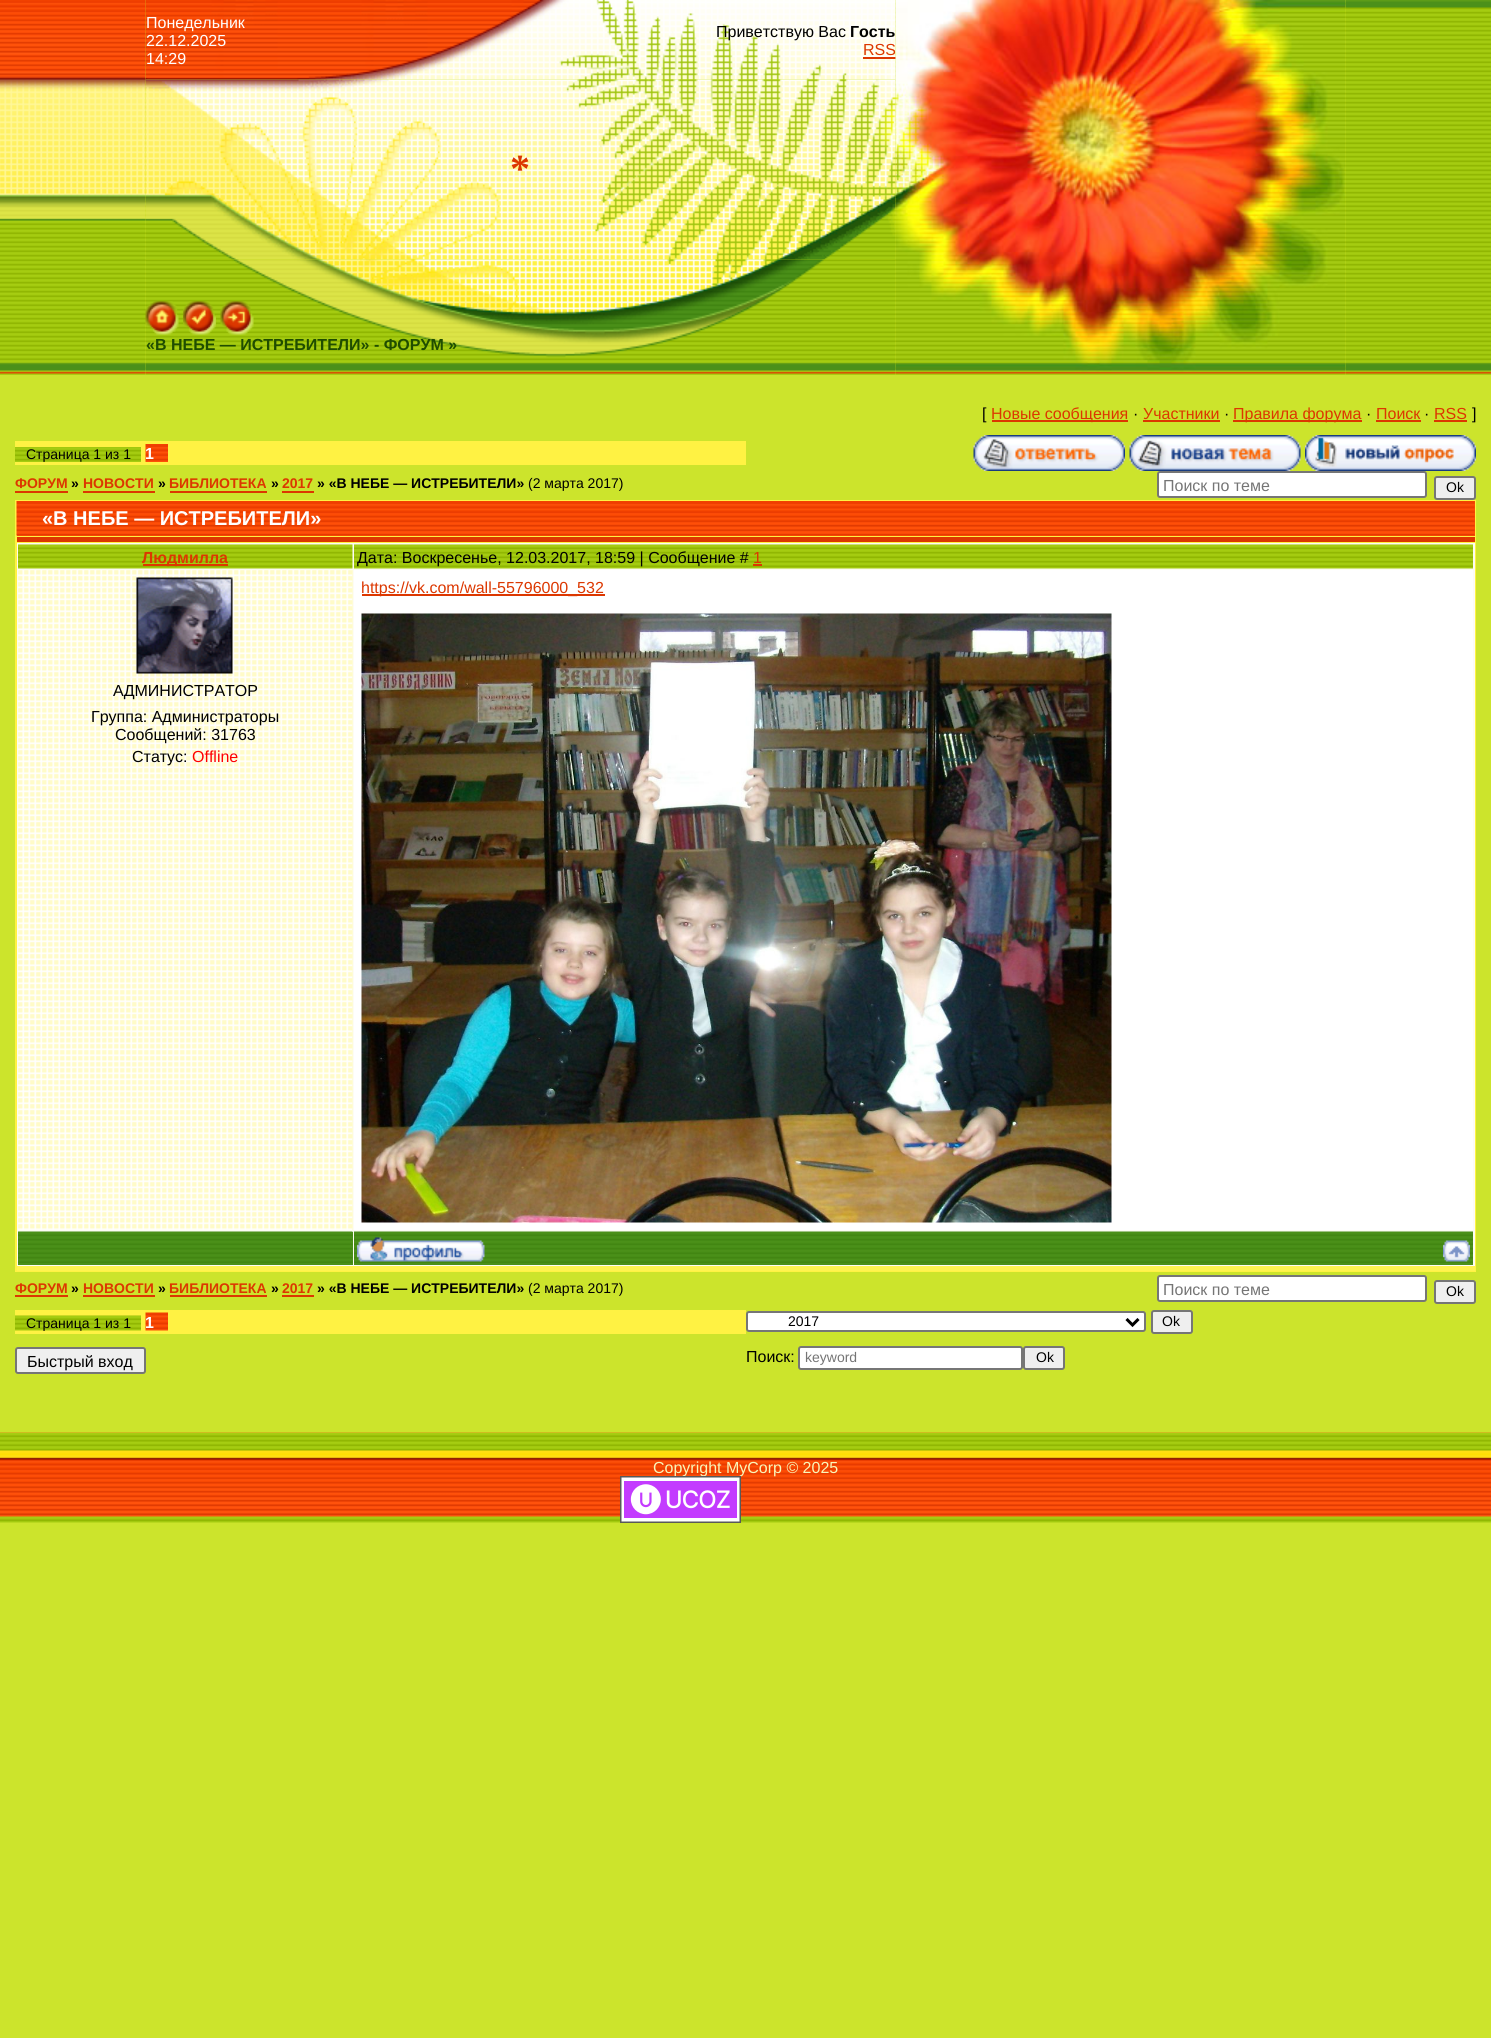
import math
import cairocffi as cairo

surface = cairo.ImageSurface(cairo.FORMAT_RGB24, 1491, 2038)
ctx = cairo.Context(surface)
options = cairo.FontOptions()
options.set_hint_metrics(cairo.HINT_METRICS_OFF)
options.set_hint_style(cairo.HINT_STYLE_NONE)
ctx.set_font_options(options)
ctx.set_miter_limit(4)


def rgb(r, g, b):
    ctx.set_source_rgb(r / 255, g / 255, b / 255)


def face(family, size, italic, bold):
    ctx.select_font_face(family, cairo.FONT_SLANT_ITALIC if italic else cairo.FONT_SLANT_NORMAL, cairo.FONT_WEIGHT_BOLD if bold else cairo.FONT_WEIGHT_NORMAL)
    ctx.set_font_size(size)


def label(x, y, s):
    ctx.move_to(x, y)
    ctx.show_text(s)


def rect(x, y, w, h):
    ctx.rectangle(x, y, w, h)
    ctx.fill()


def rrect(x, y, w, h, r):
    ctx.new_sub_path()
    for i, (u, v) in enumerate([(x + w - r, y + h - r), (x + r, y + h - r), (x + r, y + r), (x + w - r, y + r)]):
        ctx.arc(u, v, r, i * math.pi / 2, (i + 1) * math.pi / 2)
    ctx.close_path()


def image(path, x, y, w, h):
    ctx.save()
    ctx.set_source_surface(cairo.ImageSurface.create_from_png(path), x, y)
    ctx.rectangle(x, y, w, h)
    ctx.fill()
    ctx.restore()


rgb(204, 228, 44)
ctx.paint()
image('image0.png', 145, 2, 1201, 372)
image('image1.png', 0, 0, 146, 375)
image('image2.png', 145, 0, 751, 80)
face('Liberation Sans', 16, 0, 0)
rgb(255, 255, 255)
label(146, 28, 'Понедельник')
label(146, 46, '22.12.2025')
label(146, 64, '14:29')
rgb(0, 0, 0)
label(716, 37, 'Приветствую Вас')
face('Liberation Sans', 16, 0, 1)
label(850, 37, 'Гость')
face('Liberation Sans', 16, 0, 0)
rgb(220, 55, 0)
label(863, 55, 'RSS')
rect(863, 57, 33, 2)
image('image4.png', 1345, 0, 146, 375)
image('image5.png', 145, 79, 751, 181)
image('image6.png', 145, 259, 751, 116)
image('image3.png', 895, 0, 451, 375)
face('Liberation Serif', 40, 0, 1)
label(510, 182, '*')
image('image7.png', 145, 301, 34, 34)
image('image8.png', 183, 301, 33, 34)
image('image9.png', 220, 301, 34, 34)
face('Liberation Sans', 16, 0, 1)
rgb(31, 77, 0)
label(146, 350, '«В НЕБЕ — ИСТРЕБИТЕЛИ» - ФОРУМ »')
face('Liberation Sans', 16, 0, 0)
rgb(0, 0, 0)
label(982, 419, '[')
rgb(220, 55, 0)
rect(992, 420, 136, 2)
label(991, 419, 'Новые сообщения')
rgb(0, 0, 0)
label(1133, 419, '·')
rgb(220, 55, 0)
label(1143, 419, 'Участники')
rect(1143, 420, 77, 2)
rgb(0, 0, 0)
label(1224, 419, '·')
rgb(220, 55, 0)
rect(1233, 420, 129, 2)
label(1233, 419, 'Правила форума')
rgb(0, 0, 0)
label(1366, 419, '·')
rgb(220, 55, 0)
label(1376, 419, 'Поиск')
rect(1376, 420, 45, 2)
rgb(0, 0, 0)
label(1424, 419, '·')
rgb(220, 55, 0)
label(1434, 419, 'RSS')
rect(1434, 420, 33, 2)
rgb(0, 0, 0)
label(1472, 419, ']')
rgb(255, 242, 67)
rect(15, 441, 731, 24)
image('image10.png', 15, 447, 126, 15)
face('Liberation Sans', 14, 0, 0)
rgb(0, 0, 0)
label(26, 459, 'Страница 1 из 1')
image('image11.png', 145, 444, 23, 18)
face('Liberation Sans', 16, 0, 1)
rgb(255, 255, 255)
label(145, 459, '1')
image('image12.png', 973, 435, 152, 36)
image('image13.png', 1129, 435, 172, 36)
image('image14.png', 1305, 435, 171, 36)
face('Liberation Sans', 14, 0, 1)
rgb(220, 55, 0)
label(15, 488, 'ФОРУМ')
rect(15, 491, 53, 2)
rgb(0, 0, 0)
label(71, 488, '»')
rgb(220, 55, 0)
label(83, 488, 'НОВОСТИ')
rect(83, 491, 72, 2)
rgb(0, 0, 0)
label(158, 488, '»')
rgb(220, 55, 0)
label(169, 488, 'БИБЛИОТЕКА')
rect(170, 491, 97, 2)
rgb(0, 0, 0)
label(271, 488, '»')
rgb(220, 55, 0)
label(282, 488, '2017')
rect(282, 491, 32, 2)
rgb(0, 0, 0)
label(317, 488, '» «В НЕБЕ — ИСТРЕБИТЕЛИ»')
face('Liberation Sans', 14, 0, 0)
label(528, 488, '(2 марта 2017)')
rgb(255, 255, 255)
rrect(1158, 472, 268, 25, 2)
ctx.fill_preserve()
rgb(118, 118, 118)
ctx.stroke()
face('Liberation Sans', 16, 0, 0)
rgb(117, 117, 117)
label(1163, 491, 'Поиск по теме')
rgb(239, 239, 239)
rrect(1435, 477, 40, 22, 2)
ctx.fill_preserve()
rgb(118, 118, 118)
ctx.stroke()
face('Liberation Sans', 14, 0, 0)
rgb(0, 0, 0)
label(1446, 492, 'Ok')
rgb(255, 242, 67)
rect(15, 500, 1461, 772)
rgb(251, 74, 2)
rect(17, 501, 1458, 35)
image('image15.png', 16, 501, 1459, 35)
face('Liberation Sans', 20, 0, 1)
rgb(255, 255, 255)
label(42, 525, '«В НЕБЕ — ИСТРЕБИТЕЛИ»')
rgb(220, 55, 0)
rect(17, 537, 1458, 5)
rgb(253, 252, 244)
rect(17, 543, 1458, 723)
rgb(255, 243, 80)
rect(17, 1266, 1458, 5)
image('image16.png', 18, 544, 335, 25)
rgb(220, 55, 0)
rect(143, 564, 85, 2)
face('Liberation Sans', 16, 0, 1)
label(142, 563, 'Людмилла')
image('image17.png', 354, 544, 1119, 25)
face('Liberation Sans', 16, 0, 0)
rgb(0, 0, 0)
label(357, 563, 'Дата: Воскресенье, 12.03.2017, 18:59 | Сообщение #')
rgb(220, 55, 0)
label(753, 563, '1')
rect(753, 564, 9, 2)
rgb(255, 255, 255)
rect(354, 570, 1119, 660)
rgb(220, 55, 0)
rect(362, 594, 243, 2)
label(361, 593, 'https://vk.com/wall-55796000_532')
image('image18.png', 361, 613, 751, 610)
rgb(255, 251, 196)
rect(352, 570, 1, 660)
image('image19.png', 18, 570, 335, 660)
image('image20.png', 136, 577, 97, 97)
rgb(0, 0, 0)
label(113, 696, 'АДМИНИСТРАТОР')
label(91, 722, 'Группа: Администраторы')
label(115, 740, 'Сообщений: 31763')
label(132, 762, 'Статус:')
rgb(255, 0, 0)
label(192, 762, 'Offline')
rgb(75, 144, 25)
rect(18, 1232, 335, 33)
image('image21.png', 18, 1231, 335, 32)
rect(354, 1263, 1119, 2)
image('image22.png', 354, 1231, 1119, 32)
image('image23.png', 357, 1237, 128, 25)
image('image24.png', 1443, 1240, 27, 22)
face('Liberation Sans', 14, 0, 1)
rgb(220, 55, 0)
label(15, 1293, 'ФОРУМ')
rect(15, 1295, 53, 2)
rgb(0, 0, 0)
label(71, 1293, '»')
rgb(220, 55, 0)
label(83, 1293, 'НОВОСТИ')
rect(83, 1295, 72, 2)
rgb(0, 0, 0)
label(158, 1293, '»')
rgb(220, 55, 0)
label(169, 1293, 'БИБЛИОТЕКА')
rect(170, 1295, 97, 2)
rgb(0, 0, 0)
label(271, 1293, '»')
rgb(220, 55, 0)
label(282, 1293, '2017')
rect(282, 1295, 32, 2)
rgb(0, 0, 0)
label(317, 1293, '» «В НЕБЕ — ИСТРЕБИТЕЛИ»')
face('Liberation Sans', 14, 0, 0)
label(528, 1293, '(2 марта 2017)')
rgb(255, 255, 255)
rrect(1158, 1276, 268, 25, 2)
ctx.fill_preserve()
rgb(118, 118, 118)
ctx.stroke()
face('Liberation Sans', 16, 0, 0)
rgb(117, 117, 117)
label(1163, 1295, 'Поиск по теме')
rgb(239, 239, 239)
rrect(1435, 1281, 40, 22, 2)
ctx.fill_preserve()
rgb(118, 118, 118)
ctx.stroke()
face('Liberation Sans', 14, 0, 0)
rgb(0, 0, 0)
label(1446, 1296, 'Ok')
rgb(255, 242, 67)
rect(15, 1310, 731, 24)
image('image25.png', 15, 1315, 126, 16)
rgb(0, 0, 0)
label(26, 1328, 'Страница 1 из 1')
image('image26.png', 145, 1312, 23, 19)
face('Liberation Sans', 16, 0, 1)
rgb(255, 255, 255)
label(145, 1328, '1')
rrect(747, 1312, 398, 19, 2)
ctx.fill_preserve()
rgb(118, 118, 118)
ctx.stroke()
ctx.new_path()
ctx.move_to(1126.5, 1319)
ctx.line_to(1132.5, 1325)
ctx.line_to(1138.5, 1319)
rgb(0, 0, 0)
ctx.set_line_width(3)
ctx.stroke()
face('Liberation Sans', 14, 0, 0)
label(788, 1326, '2017')
rgb(239, 239, 239)
rrect(1152, 1311, 40, 22, 2)
ctx.fill_preserve()
rgb(118, 118, 118)
ctx.set_line_width(2)
ctx.stroke()
rgb(0, 0, 0)
label(1162, 1326, 'Ok')
rgb(239, 239, 239)
rrect(16, 1348, 129, 25, 2)
ctx.fill_preserve()
rgb(118, 118, 118)
ctx.stroke()
face('Liberation Sans', 16, 0, 0)
rgb(0, 0, 0)
label(27, 1367, 'Быстрый вход')
label(746, 1362, 'Поиск:')
rgb(255, 255, 255)
rrect(799, 1347, 223, 22, 2)
ctx.fill_preserve()
rgb(118, 118, 118)
ctx.stroke()
face('Liberation Sans', 14, 0, 0)
rgb(117, 117, 117)
label(805, 1362, 'keyword')
rgb(239, 239, 239)
rrect(1024, 1347, 40, 22, 2)
ctx.fill_preserve()
rgb(118, 118, 118)
ctx.stroke()
rgb(0, 0, 0)
label(1036, 1362, 'Ok')
image('image27.png', 0, 1432, 1491, 91)
face('Liberation Sans', 16, 0, 0)
rgb(249, 247, 186)
label(653, 1473, 'Copyright MyCorp © 2025')
image('image28.png', 620, 1476, 121, 47)
surface.write_to_png('render.png')
